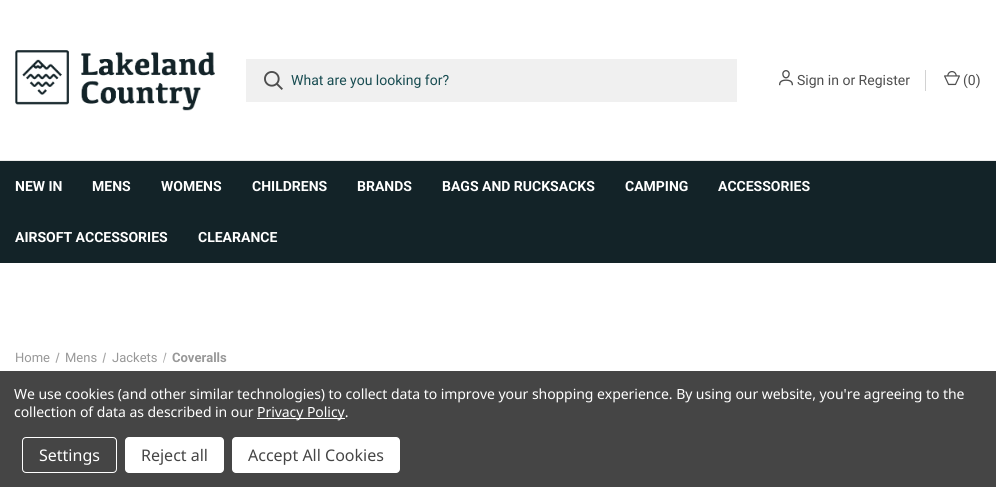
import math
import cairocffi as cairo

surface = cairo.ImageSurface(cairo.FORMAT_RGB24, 996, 487)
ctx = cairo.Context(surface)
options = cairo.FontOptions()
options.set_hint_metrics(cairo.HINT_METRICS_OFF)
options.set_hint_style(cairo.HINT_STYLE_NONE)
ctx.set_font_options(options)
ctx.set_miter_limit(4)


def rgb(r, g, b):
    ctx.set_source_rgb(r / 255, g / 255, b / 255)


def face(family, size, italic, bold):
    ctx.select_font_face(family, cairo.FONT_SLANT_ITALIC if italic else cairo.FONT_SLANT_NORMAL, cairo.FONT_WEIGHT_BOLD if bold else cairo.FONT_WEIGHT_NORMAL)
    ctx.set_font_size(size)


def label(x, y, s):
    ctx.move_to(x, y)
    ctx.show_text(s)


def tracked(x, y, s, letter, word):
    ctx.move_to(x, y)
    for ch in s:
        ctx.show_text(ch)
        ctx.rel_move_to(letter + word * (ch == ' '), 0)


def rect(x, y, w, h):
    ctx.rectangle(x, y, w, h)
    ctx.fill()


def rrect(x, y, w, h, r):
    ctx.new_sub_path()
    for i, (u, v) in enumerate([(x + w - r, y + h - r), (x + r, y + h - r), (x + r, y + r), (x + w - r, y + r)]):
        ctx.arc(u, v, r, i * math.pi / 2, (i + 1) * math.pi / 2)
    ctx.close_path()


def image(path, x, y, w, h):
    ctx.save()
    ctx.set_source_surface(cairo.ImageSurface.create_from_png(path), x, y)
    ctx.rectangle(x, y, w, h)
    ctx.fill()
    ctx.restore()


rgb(255, 255, 255)
ctx.paint()
image('image0.png', 15, 50, 200, 61)
rgb(240, 240, 240)
rect(246, 59, 491, 43)
image('image1.png', 264, 71, 19, 19)
face('Roboto', 14, 0, 0)
rgb(24, 76, 81)
label(291, 85, 'What are you looking for?')
image('image2.png', 779, 70, 14, 16)
rgb(78, 78, 78)
label(797, 85, 'Sign in or Register')
rgb(210, 210, 210)
rect(925, 70, 1, 21)
image('image3.png', 944, 71, 16, 15)
rgb(78, 78, 78)
label(963, 85, '(0)')
rgb(19, 35, 40)
rect(0, 161, 996, 102)
rgb(235, 235, 235)
rect(0, 160, 996, 1)
face('Roboto', 14, 0, 1)
rgb(255, 255, 255)
label(15, 191, 'NEW IN')
label(92, 191, 'MENS')
label(161, 191, 'WOMENS')
label(252, 191, 'CHILDRENS')
label(357, 191, 'BRANDS')
label(442, 191, 'BAGS AND RUCKSACKS')
label(625, 191, 'CAMPING')
label(718, 191, 'ACCESSORIES')
label(15, 242, 'AIRSOFT ACCESSORIES')
label(198, 242, 'CLEARANCE')
face('Roboto', 13, 0, 0)
rgb(152, 152, 152)
label(15, 362, 'Home')
label(65, 362, 'Mens')
rgb(163, 163, 163)
ctx.new_path()
ctx.move_to(58.5, 352.5)
ctx.line_to(59.5, 353)
ctx.line_to(56.5, 363)
ctx.line_to(55.5, 362.5)
ctx.close_path()
ctx.move_to(105, 352.5)
ctx.line_to(106, 353)
ctx.line_to(103.5, 363)
ctx.line_to(102.5, 362.5)
ctx.close_path()
ctx.fill()
rgb(152, 152, 152)
label(112, 362, 'Jackets')
rgb(163, 163, 163)
ctx.new_path()
ctx.move_to(165.5, 352.5)
ctx.line_to(166.5, 353)
ctx.line_to(163.5, 363)
ctx.line_to(163, 362.5)
ctx.close_path()
ctx.fill()
face('Roboto', 13, 0, 1)
rgb(152, 152, 152)
label(172, 362, 'Coveralls')
rgb(69, 69, 69)
rect(0, 371, 996, 116)
face('Noto Sans', 14, 0, 0)
rgb(255, 255, 255)
tracked(14, 399, 'We use cookies (and other similar technologies) to collect data to improve your shopping experience. By using our website, you\'re agreeing to the', -0.05, 0)
tracked(14, 417, 'collection of data as described in our', -0.05, 0)
rect(257, 418, 88, 1)
tracked(257, 417, 'Privacy Policy.', -0.05, 0)
rrect(22.5, 437.5, 94, 35, 3.5)
ctx.set_line_width(1)
ctx.stroke()
face('Noto Sans', 16, 0, 0)
label(39, 461, 'Settings')
rrect(125, 437, 99, 36, 4)
ctx.fill()
rgb(69, 69, 69)
label(141, 461, 'Reject all')
rgb(255, 255, 255)
rrect(232, 437, 168, 36, 4)
ctx.fill()
rgb(69, 69, 69)
label(248, 461, 'Accept All Cookies')
surface.write_to_png('render.png')
